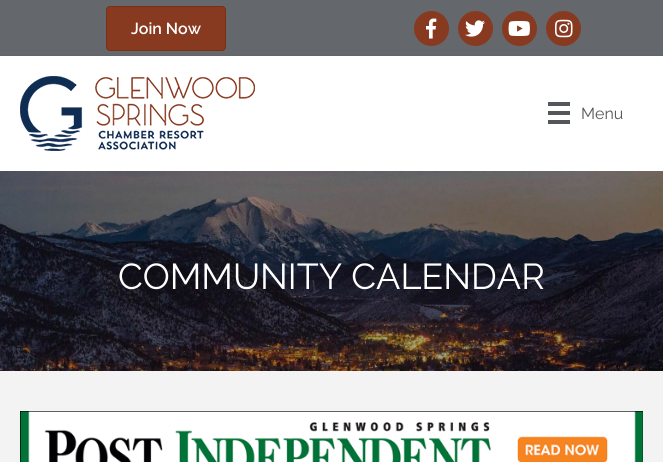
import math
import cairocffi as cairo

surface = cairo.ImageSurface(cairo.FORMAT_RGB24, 663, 462)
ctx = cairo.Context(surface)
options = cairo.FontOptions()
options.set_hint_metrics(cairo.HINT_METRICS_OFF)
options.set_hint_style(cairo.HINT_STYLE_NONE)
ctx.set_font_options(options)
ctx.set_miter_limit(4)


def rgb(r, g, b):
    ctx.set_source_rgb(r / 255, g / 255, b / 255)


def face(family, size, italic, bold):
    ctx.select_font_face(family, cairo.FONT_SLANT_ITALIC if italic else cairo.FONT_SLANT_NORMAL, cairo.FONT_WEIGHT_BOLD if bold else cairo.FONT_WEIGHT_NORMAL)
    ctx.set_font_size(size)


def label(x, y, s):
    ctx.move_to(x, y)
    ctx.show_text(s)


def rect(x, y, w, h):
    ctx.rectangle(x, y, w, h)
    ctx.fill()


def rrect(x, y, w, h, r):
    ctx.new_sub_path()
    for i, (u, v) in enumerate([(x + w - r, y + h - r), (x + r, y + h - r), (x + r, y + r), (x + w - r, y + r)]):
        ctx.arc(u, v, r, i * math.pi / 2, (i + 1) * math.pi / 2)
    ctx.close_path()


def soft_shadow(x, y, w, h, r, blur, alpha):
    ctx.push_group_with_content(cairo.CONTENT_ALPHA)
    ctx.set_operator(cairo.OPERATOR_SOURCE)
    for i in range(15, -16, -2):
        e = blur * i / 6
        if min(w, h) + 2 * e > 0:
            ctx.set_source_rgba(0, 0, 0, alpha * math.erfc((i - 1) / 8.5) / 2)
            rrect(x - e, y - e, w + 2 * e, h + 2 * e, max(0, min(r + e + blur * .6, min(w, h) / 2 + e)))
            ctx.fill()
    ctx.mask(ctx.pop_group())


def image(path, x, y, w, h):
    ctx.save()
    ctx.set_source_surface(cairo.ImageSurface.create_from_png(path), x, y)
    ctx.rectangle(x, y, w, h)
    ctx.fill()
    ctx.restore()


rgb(100, 103, 107)
ctx.paint()
rgb(136, 58, 32)
rrect(106.5, 6.5, 119, 44, 3.5)
ctx.fill_preserve()
rgb(124, 46, 20)
ctx.set_line_width(1)
ctx.stroke()
face('Raleway SemiBold', 16, 0, 0)
rgb(255, 255, 255)
label(131, 34, 'Join Now')
rgb(136, 58, 32)
ctx.new_path()
ctx.arc(431.5, 28.5, 17.5, 0, 2 * math.pi)
ctx.fill()
image('image0.png', 426, 18, 11, 21)
ctx.arc(475.5, 28.5, 17.5, 0, 2 * math.pi)
ctx.fill()
image('image1.png', 465, 20, 20, 17)
ctx.arc(519.5, 28.5, 17.5, 0, 2 * math.pi)
ctx.fill()
image('image2.png', 508, 21, 22, 15)
ctx.arc(563.5, 28.5, 17.5, 0, 2 * math.pi)
ctx.fill()
image('image3.png', 555, 19, 18, 19)
rgb(0, 0, 0)
soft_shadow(2, 58, 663, 115, 0, 2.5, 0.15)
rgb(255, 255, 255)
rect(0, 56, 663, 115)
image('image4.png', 20, 76, 235, 75)
rgb(83, 86, 90)
rect(548, 102, 22, 4)
rect(548, 111, 22, 4)
rect(548, 120, 22, 4)
face('Raleway', 16, 0, 0)
label(581, 119, 'Menu')
rgb(243, 243, 243)
rect(0, 371, 663, 91)
image('image5.png', 0, 171, 663, 200)
face('Raleway', 36, 0, 0)
rgb(255, 255, 255)
label(118, 289, 'COMMUNITY CALENDAR')
image('image6.png', 20, 411, 623, 51)
surface.write_to_png('render.png')
